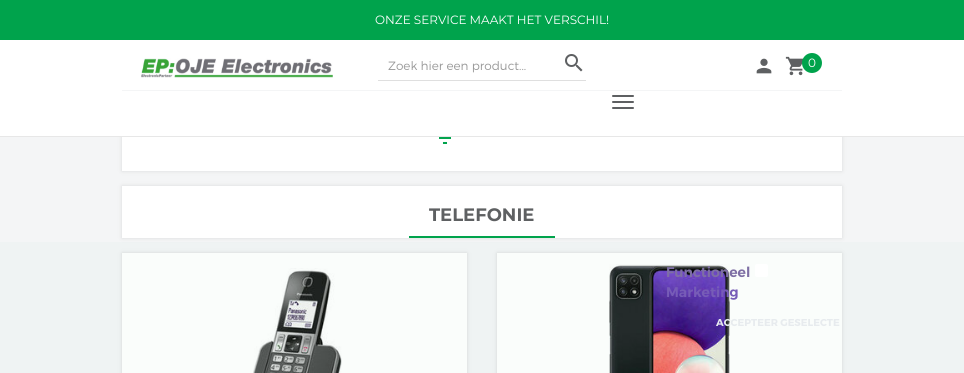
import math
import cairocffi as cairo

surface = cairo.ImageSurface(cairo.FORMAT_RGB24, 964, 373)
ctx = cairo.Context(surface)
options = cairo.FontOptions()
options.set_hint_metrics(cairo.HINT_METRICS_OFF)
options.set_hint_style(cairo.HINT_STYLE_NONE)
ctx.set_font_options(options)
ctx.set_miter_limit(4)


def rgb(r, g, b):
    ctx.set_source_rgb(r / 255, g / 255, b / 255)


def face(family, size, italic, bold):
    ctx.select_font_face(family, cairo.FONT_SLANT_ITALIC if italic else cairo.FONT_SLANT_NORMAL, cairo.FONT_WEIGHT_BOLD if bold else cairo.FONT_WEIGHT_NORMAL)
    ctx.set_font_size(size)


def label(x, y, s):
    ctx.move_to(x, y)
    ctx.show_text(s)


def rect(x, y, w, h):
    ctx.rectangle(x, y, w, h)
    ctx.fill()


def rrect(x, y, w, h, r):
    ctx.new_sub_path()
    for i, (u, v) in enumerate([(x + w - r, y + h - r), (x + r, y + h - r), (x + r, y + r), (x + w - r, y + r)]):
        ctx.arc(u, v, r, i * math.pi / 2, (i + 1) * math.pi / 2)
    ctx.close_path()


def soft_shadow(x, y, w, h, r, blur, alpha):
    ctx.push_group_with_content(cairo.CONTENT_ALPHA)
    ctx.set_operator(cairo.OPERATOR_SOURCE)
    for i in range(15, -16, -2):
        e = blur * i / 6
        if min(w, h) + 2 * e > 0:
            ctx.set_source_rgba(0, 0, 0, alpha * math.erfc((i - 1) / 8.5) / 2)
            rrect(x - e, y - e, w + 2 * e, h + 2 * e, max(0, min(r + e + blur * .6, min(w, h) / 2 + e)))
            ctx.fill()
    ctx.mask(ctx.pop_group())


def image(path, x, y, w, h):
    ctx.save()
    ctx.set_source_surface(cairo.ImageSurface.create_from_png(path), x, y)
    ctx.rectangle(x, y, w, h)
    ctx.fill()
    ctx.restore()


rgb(244, 245, 246)
ctx.paint()
rgb(239, 243, 243)
rect(0, 242, 964, 131)
rgb(189, 189, 189)
soft_shadow(122, 108, 720, 63, 0, 2, 0.5)
rgb(255, 255, 255)
rect(0, 40, 964, 96)
rgb(231, 231, 231)
rect(0, 136, 964, 1)
rgb(0, 163, 76)
rect(0, 0, 964, 40)
face('Montserrat', 12, 0, 0)
rgb(255, 255, 255)
label(375, 24, 'ONZE SERVICE MAAKT HET VERSCHIL!')
image('image0.png', 141, 58, 192, 20)
rgb(223, 223, 223)
rect(378, 80, 208, 1)
face('Montserrat Light', 12, 0, 0)
rgb(153, 153, 153)
label(388, 70, 'Zoek hier een product...')
image('image1.png', 565, 54, 18, 18)
image('image2.png', 756, 58, 16, 16)
image('image3.png', 785, 56, 19, 20)
rgb(0, 163, 76)
ctx.arc(812, 63, 10, 0, 2 * math.pi)
ctx.fill()
face('Montserrat', 12, 0, 0)
rgb(255, 255, 255)
label(808, 67, '0')
rgb(244, 245, 246)
rect(122, 90, 720, 1)
rgb(94, 96, 98)
rrect(612, 95, 22, 2, 1)
ctx.fill()
rrect(612, 101, 22, 2, 1)
ctx.fill()
rrect(612, 107, 22, 2, 1)
ctx.fill()
rgb(255, 255, 255)
rect(122, 137, 720, 34)
image('image4.png', 439, 137, 12, 7)
rgb(189, 189, 189)
soft_shadow(122, 186, 720, 52, 0, 2, 0.5)
rgb(255, 255, 255)
rect(122, 186, 720, 52)
rgb(0, 163, 76)
rect(409, 236, 146, 2)
face('Montserrat', 18, 0, 1)
rgb(94, 96, 98)
label(429, 221, 'TELEFONIE')
rgb(185, 188, 187)
soft_shadow(122, 253, 345, 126, 0, 2, 0.5)
rgb(250, 253, 251)
rect(122, 253, 345, 120)
image('image5.png', 253, 268, 89, 105)
rgb(185, 188, 187)
soft_shadow(497, 253, 345, 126, 0, 2, 0.5)
rgb(250, 253, 251)
rect(497, 253, 345, 120)
image('image6.png', 609, 264, 121, 109)
face('Montserrat SemiBold', 14, 0, 0)
rgb(126, 111, 164)
label(666, 277, 'Functioneel')
rgb(255, 255, 255)
rrect(755, 264, 13, 13, 2)
ctx.fill()
rgb(119, 92, 183)
label(666, 297, 'Marketing')
face('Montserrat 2', 10, 0, 1)
rgb(231, 235, 238)
label(716, 326, 'ACCEPTEER GESELECTE')
surface.write_to_png('render.png')
